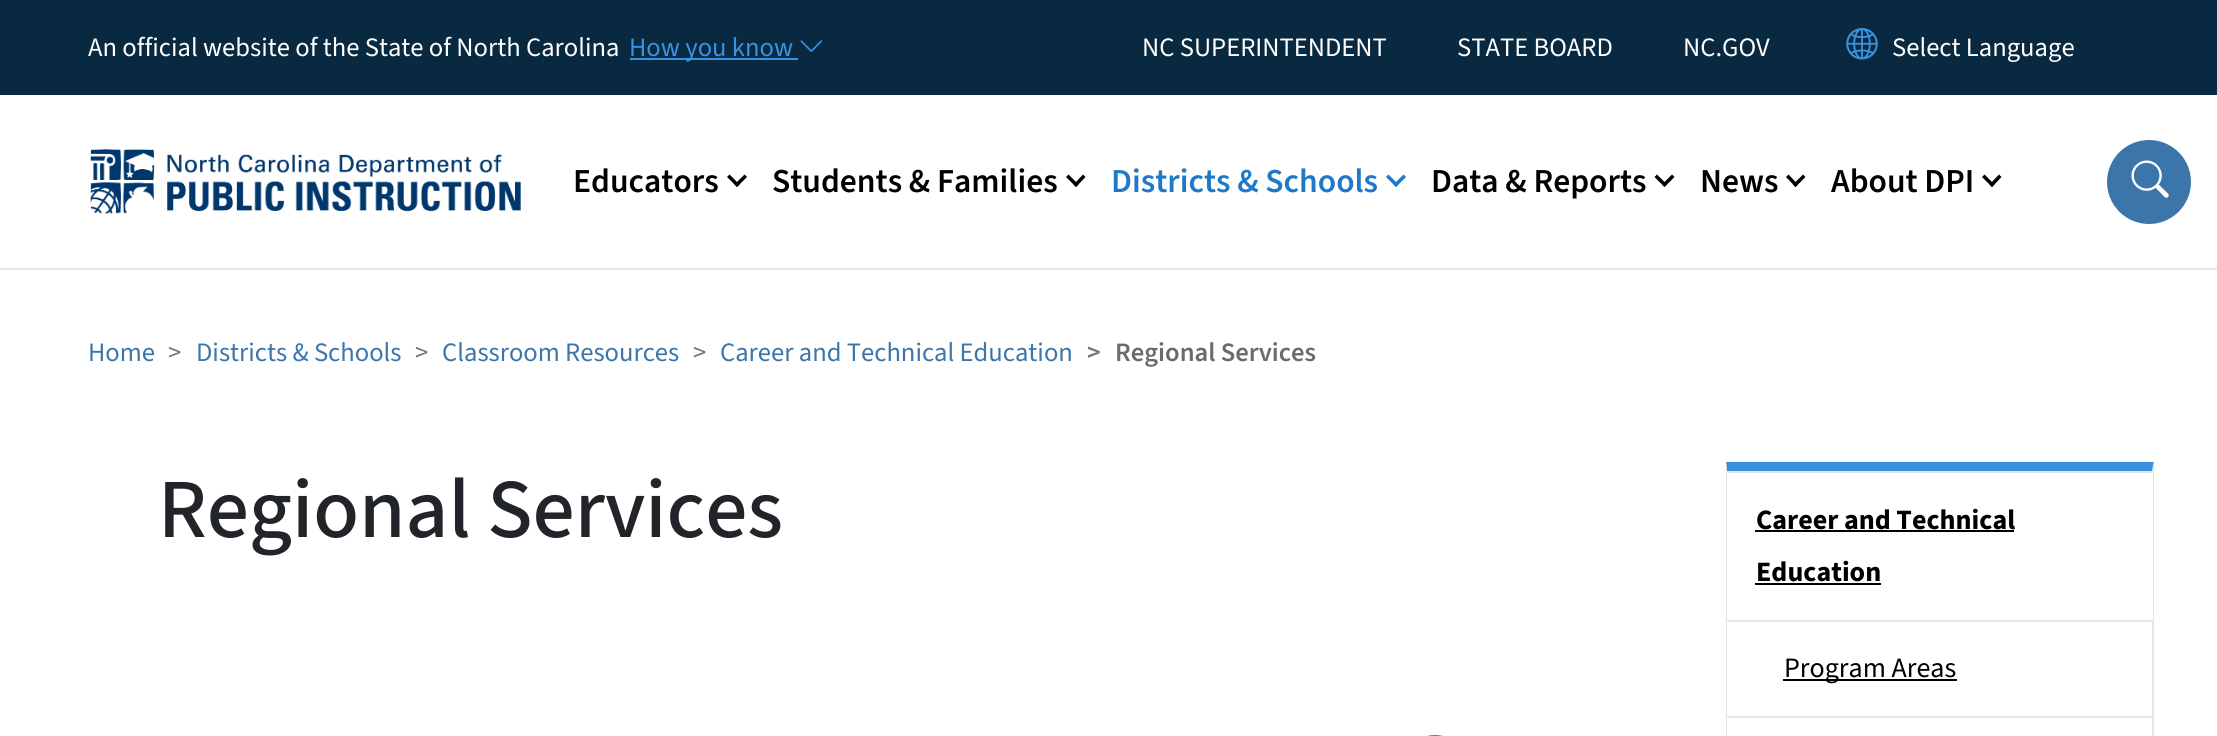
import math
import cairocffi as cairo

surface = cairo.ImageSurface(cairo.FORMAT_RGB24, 2217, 736)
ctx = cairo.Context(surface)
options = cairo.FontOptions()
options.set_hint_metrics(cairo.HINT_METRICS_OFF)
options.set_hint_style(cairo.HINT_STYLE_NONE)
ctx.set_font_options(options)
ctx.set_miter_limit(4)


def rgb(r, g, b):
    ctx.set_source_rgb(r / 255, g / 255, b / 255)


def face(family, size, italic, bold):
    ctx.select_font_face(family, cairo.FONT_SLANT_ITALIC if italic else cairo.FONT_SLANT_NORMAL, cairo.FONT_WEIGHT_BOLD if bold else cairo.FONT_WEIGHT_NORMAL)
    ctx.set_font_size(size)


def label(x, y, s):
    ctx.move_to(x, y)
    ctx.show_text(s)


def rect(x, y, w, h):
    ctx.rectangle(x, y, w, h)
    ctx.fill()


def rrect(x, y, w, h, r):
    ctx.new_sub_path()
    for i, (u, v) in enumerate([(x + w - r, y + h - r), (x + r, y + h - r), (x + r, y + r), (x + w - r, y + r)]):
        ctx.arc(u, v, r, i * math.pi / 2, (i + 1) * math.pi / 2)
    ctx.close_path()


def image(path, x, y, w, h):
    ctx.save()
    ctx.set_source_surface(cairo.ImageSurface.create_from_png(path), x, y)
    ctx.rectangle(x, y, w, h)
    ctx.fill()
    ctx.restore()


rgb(255, 255, 255)
ctx.paint()
rgb(229, 229, 229)
rect(0, 268, 2217, 2)
rgb(9, 41, 64)
rect(0, 0, 2217, 95)
face('Source Sans 3', 26.6, 0, 0)
rgb(255, 255, 255)
label(88, 56, 'An official website of the State of North Carolina')
rgb(56, 146, 225)
rect(630, 58, 168, 2)
label(629, 56, 'How you know')
image('image0.png', 800, 40, 23, 12)
rgb(255, 255, 255)
label(1142, 56, 'NC SUPERINTENDENT')
label(1457, 56, 'STATE BOARD')
label(1683, 56, 'NC.GOV')
image('image1.png', 1846, 28, 32, 32)
label(1892, 56, 'Select Language')
image('image2.png', 90, 149, 431, 65)
face('Source Sans 3 SemiBold', 33.5, 0, 0)
rgb(0, 0, 0)
label(573, 192, 'Educators')
ctx.new_path()
ctx.move_to(744.5, 174.5)
ctx.line_to(747, 177)
ctx.line_to(737, 187)
ctx.line_to(734.5, 184.5)
ctx.close_path()
ctx.fill()
ctx.new_path()
ctx.move_to(729.5, 174.5)
ctx.line_to(739.5, 184.5)
ctx.line_to(737, 187)
ctx.line_to(727, 177)
ctx.close_path()
ctx.fill()
label(772, 192, 'Students & Families')
ctx.new_path()
ctx.move_to(1083, 174.5)
ctx.line_to(1085.5, 177)
ctx.line_to(1076, 187)
ctx.line_to(1073.5, 184.5)
ctx.close_path()
ctx.fill()
ctx.new_path()
ctx.move_to(1068.5, 174.5)
ctx.line_to(1078.5, 184.5)
ctx.line_to(1076, 187)
ctx.line_to(1066, 177)
ctx.close_path()
ctx.fill()
rgb(30, 121, 200)
label(1111, 192, 'Districts & Schools')
ctx.new_path()
ctx.move_to(1403.5, 174.5)
ctx.line_to(1406, 177)
ctx.line_to(1396, 187)
ctx.line_to(1393.5, 184.5)
ctx.close_path()
ctx.fill()
ctx.new_path()
ctx.move_to(1388.5, 174.5)
ctx.line_to(1398.5, 184.5)
ctx.line_to(1396, 187)
ctx.line_to(1386, 177)
ctx.close_path()
ctx.fill()
rgb(0, 0, 0)
label(1431, 192, 'Data & Reports')
ctx.new_path()
ctx.move_to(1672, 174.5)
ctx.line_to(1674.5, 177)
ctx.line_to(1664.5, 187)
ctx.line_to(1662, 184.5)
ctx.close_path()
ctx.fill()
ctx.new_path()
ctx.move_to(1657, 174.5)
ctx.line_to(1667, 184.5)
ctx.line_to(1664.5, 187)
ctx.line_to(1654.5, 177)
ctx.close_path()
ctx.fill()
label(1700, 192, 'News')
ctx.new_path()
ctx.move_to(1803, 174.5)
ctx.line_to(1805.5, 177)
ctx.line_to(1795.5, 187)
ctx.line_to(1793, 184.5)
ctx.close_path()
ctx.fill()
ctx.new_path()
ctx.move_to(1788.5, 174.5)
ctx.line_to(1798, 184.5)
ctx.line_to(1795.5, 187)
ctx.line_to(1786, 177)
ctx.close_path()
ctx.fill()
label(1831, 192, 'About DPI')
ctx.new_path()
ctx.move_to(1999, 174.5)
ctx.line_to(2001.5, 177)
ctx.line_to(1992, 187)
ctx.line_to(1989.5, 184.5)
ctx.close_path()
ctx.fill()
ctx.new_path()
ctx.move_to(1984.5, 174.5)
ctx.line_to(1994.5, 184.5)
ctx.line_to(1992, 187)
ctx.line_to(1982, 177)
ctx.close_path()
ctx.fill()
rgb(59, 117, 169)
ctx.arc(2149, 182, 42, 0, 2 * math.pi)
ctx.fill()
image('image3.png', 2131, 160, 38, 38)
face('Source Sans 3', 26.6, 0, 0)
label(88, 361, 'Home')
rgb(108, 117, 125)
label(168, 361, '>')
rgb(59, 117, 169)
label(196, 361, 'Districts & Schools')
rgb(108, 117, 125)
label(415, 361, '>')
rgb(59, 117, 169)
label(442, 361, 'Classroom Resources')
rgb(108, 117, 125)
label(693, 361, '>')
rgb(59, 117, 169)
label(720, 361, 'Career and Technical Education')
face('Source Sans 3 SemiBold', 26.6, 0, 0)
rgb(108, 117, 125)
label(1087, 361, '>')
rgb(107, 107, 107)
label(1115, 361, 'Regional Services')
face('Source Sans 3 Medium', 84, 0, 0)
rgb(33, 37, 41)
label(158, 537, 'Regional Services')
rrect(1401, 736, 68, 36, 34)
rgb(117, 117, 117)
ctx.stroke()
rgb(56, 146, 225)
ctx.new_path()
ctx.move_to(1726, 462)
ctx.line_to(2154, 462)
ctx.line_to(2152, 471)
ctx.line_to(1727, 471)
ctx.close_path()
ctx.fill()
rgb(229, 229, 229)
ctx.new_path()
ctx.move_to(2154, 462)
ctx.line_to(2154, 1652)
ctx.line_to(2152, 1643)
ctx.line_to(2152, 471)
ctx.close_path()
ctx.fill()
ctx.new_path()
ctx.move_to(1726, 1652)
ctx.line_to(1726, 462)
ctx.line_to(1727, 471)
ctx.line_to(1727, 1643)
ctx.close_path()
ctx.fill()
rect(1727, 471, 426, 2)
rgb(255, 255, 255)
rect(2152, 473, 1, 147)
face('Source Sans 3', 28, 0, 1)
rgb(0, 0, 0)
label(1756, 529, 'Career and Technical')
rect(1755, 530, 259, 2)
label(1756, 581, 'Education')
rect(1755, 583, 126, 2)
rgb(229, 229, 229)
rect(1727, 620, 426, 2)
rgb(0, 0, 0)
rect(1783, 679, 174, 2)
face('Source Sans 3', 28, 0, 0)
label(1784, 677, 'Program Areas')
rgb(229, 229, 229)
rect(1727, 716, 426, 2)
surface.write_to_png('render.png')
